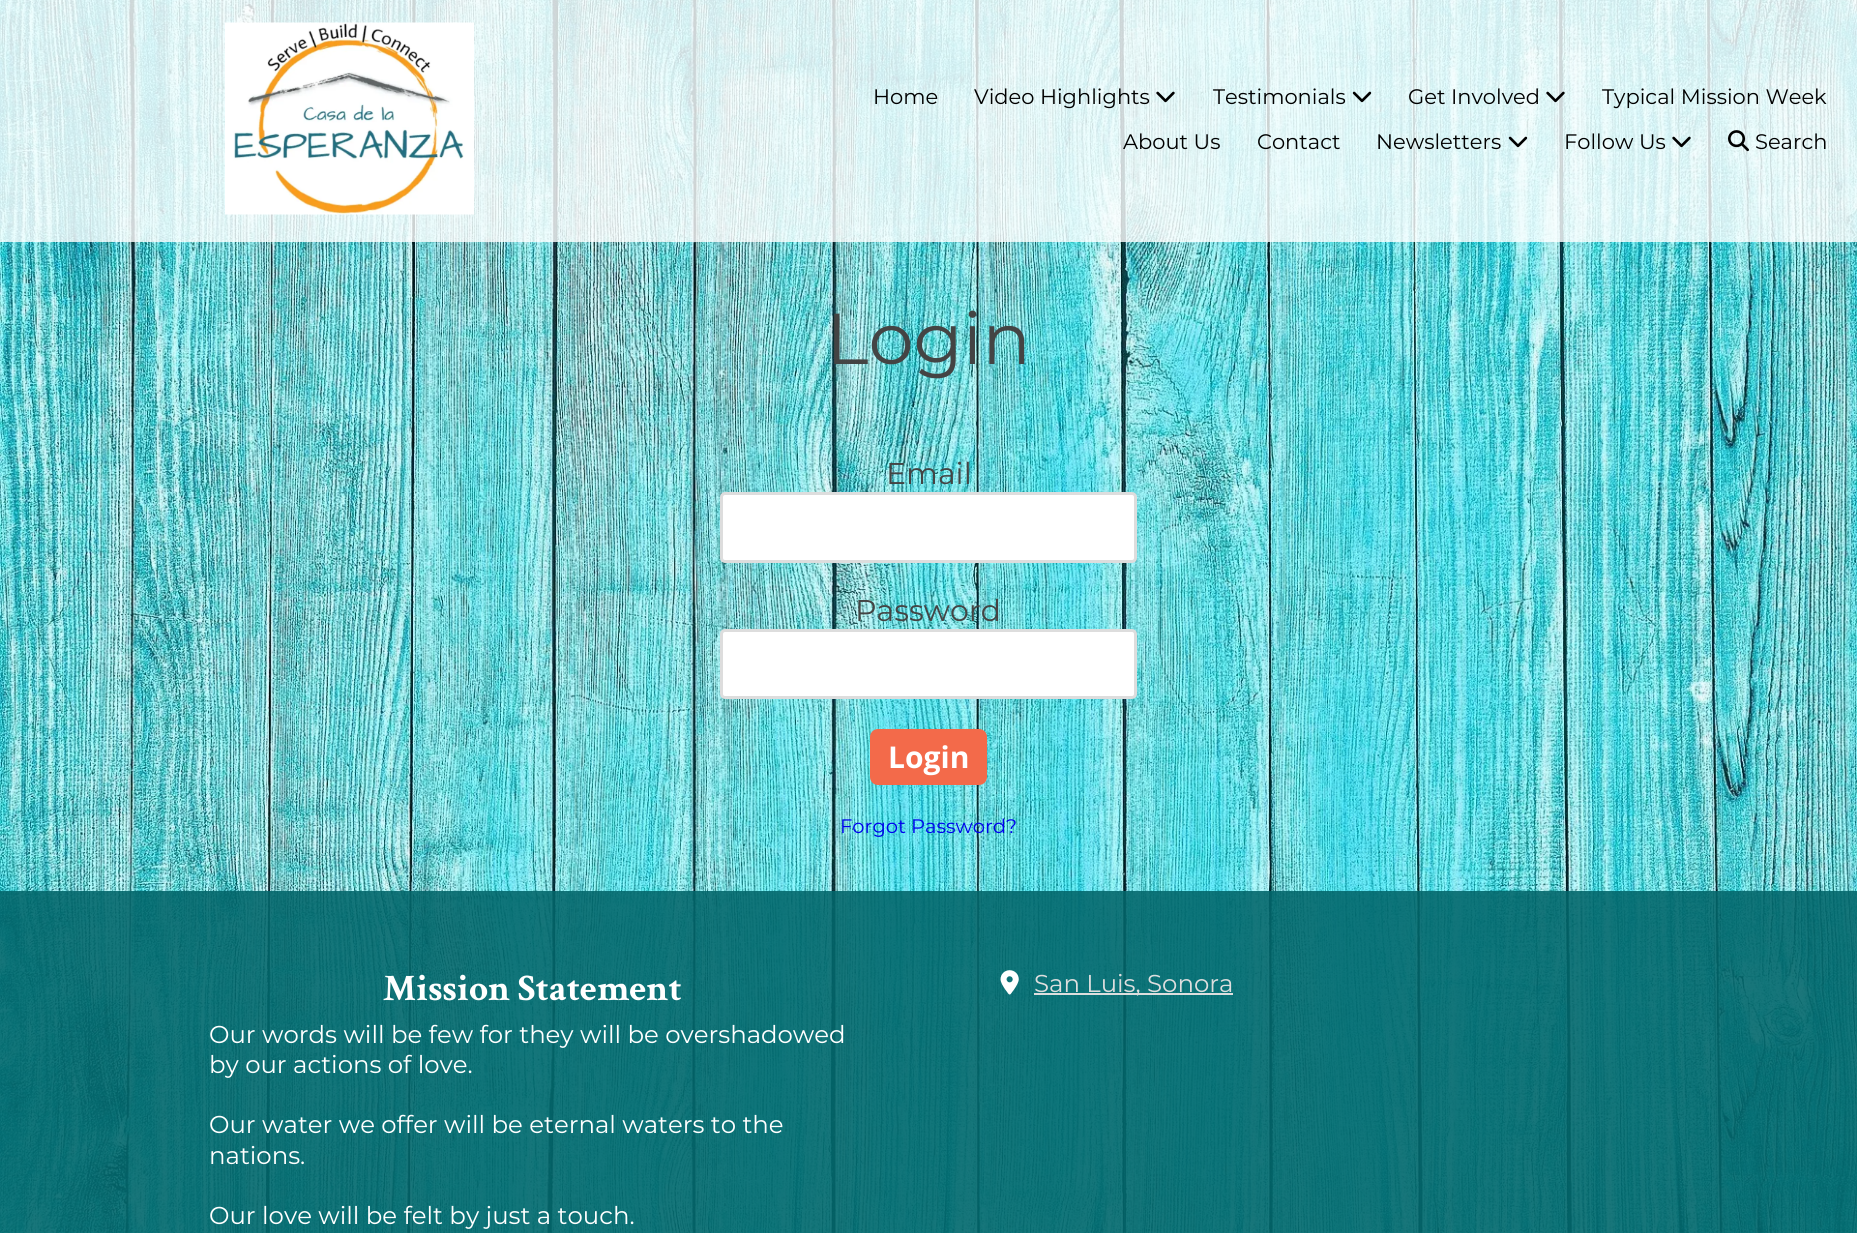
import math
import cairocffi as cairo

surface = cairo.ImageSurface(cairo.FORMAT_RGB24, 1857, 1233)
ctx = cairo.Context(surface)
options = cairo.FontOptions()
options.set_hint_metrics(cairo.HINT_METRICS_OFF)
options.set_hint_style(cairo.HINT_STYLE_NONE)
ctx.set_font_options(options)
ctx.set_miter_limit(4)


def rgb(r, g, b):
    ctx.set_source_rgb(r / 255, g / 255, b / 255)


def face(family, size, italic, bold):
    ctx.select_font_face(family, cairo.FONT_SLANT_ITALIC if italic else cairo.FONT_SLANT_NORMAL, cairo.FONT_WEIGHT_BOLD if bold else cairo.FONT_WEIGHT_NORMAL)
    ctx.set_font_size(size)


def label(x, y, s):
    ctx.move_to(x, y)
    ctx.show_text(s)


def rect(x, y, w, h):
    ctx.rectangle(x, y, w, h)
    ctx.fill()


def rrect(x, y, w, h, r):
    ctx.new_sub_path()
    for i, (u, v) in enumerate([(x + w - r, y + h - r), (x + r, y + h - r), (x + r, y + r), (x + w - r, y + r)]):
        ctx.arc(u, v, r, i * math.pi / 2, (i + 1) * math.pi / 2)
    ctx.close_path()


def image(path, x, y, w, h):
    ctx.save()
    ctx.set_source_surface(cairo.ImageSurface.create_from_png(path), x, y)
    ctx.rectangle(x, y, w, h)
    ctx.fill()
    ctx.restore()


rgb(255, 255, 255)
ctx.paint()
image('image0.png', 0, 0, 1857, 1233)
ctx.set_source_rgba(1, 1, 1, 0.8)
rect(0, 0, 1857, 242)
image('image1.png', 225, 22, 249, 193)
face('Montserrat', 21, 0, 0)
rgb(0, 0, 0)
label(873, 104, 'Home')
label(974, 104, 'Video Highlights')
image('image2.png', 1156, 91, 19, 12)
label(1213, 104, 'Testimonials')
image('image3.png', 1352, 91, 20, 12)
label(1408, 104, 'Get Involved')
image('image4.png', 1546, 91, 19, 12)
label(1602, 104, 'Typical Mission Week')
label(1123, 149, 'About Us')
label(1257, 149, 'Contact')
label(1376, 149, 'Newsletters')
image('image5.png', 1508, 136, 20, 12)
label(1564, 149, 'Follow Us')
image('image6.png', 1672, 136, 19, 12)
image('image7.png', 1728, 130, 21, 22)
label(1755, 149, 'Search')
face('Montserrat', 72, 0, 0)
rgb(68, 68, 68)
label(826, 364, 'Login')
face('Montserrat', 30, 0, 0)
label(886, 484, 'Email')
rgb(255, 255, 255)
rrect(721.5, 493.5, 414, 68, 3.5)
ctx.fill_preserve()
rgb(221, 221, 221)
ctx.set_line_width(3)
ctx.stroke()
rgb(68, 68, 68)
label(855, 621, 'Password')
rgb(255, 255, 255)
rrect(721.5, 630.5, 414, 67, 3.5)
ctx.fill_preserve()
rgb(221, 221, 221)
ctx.stroke()
rgb(243, 106, 74)
rrect(870, 729, 117, 56, 8)
ctx.fill()
face('Open Sans', 30, 0, 1)
rgb(255, 255, 255)
label(888, 768, 'Login')
face('Montserrat', 19.5, 0, 0)
rgb(0, 0, 238)
label(840, 833, 'Forgot Password?')
ctx.set_source_rgba(0.012, 0.4, 0.42, 0.89)
rect(0, 891, 1857, 342)
face('Crimson Text', 37.5, 0, 1)
rgb(255, 255, 255)
label(383, 1000, 'Mission Statement')
face('Montserrat', 24.4, 0, 0)
label(209, 1043, 'Our words will be few for they will be overshadowed')
label(209, 1073, 'by our actions of love.')
label(209, 1133, 'Our water we offer will be eternal waters to the')
label(209, 1164, 'nations.')
label(209, 1224, 'Our love will be felt by just a touch.')
image('image8.png', 1000, 970, 19, 25)
rgb(222, 222, 222)
rect(1034, 993, 199, 2)
label(1034, 992, 'San Luis, Sonora')
surface.write_to_png('render.png')
